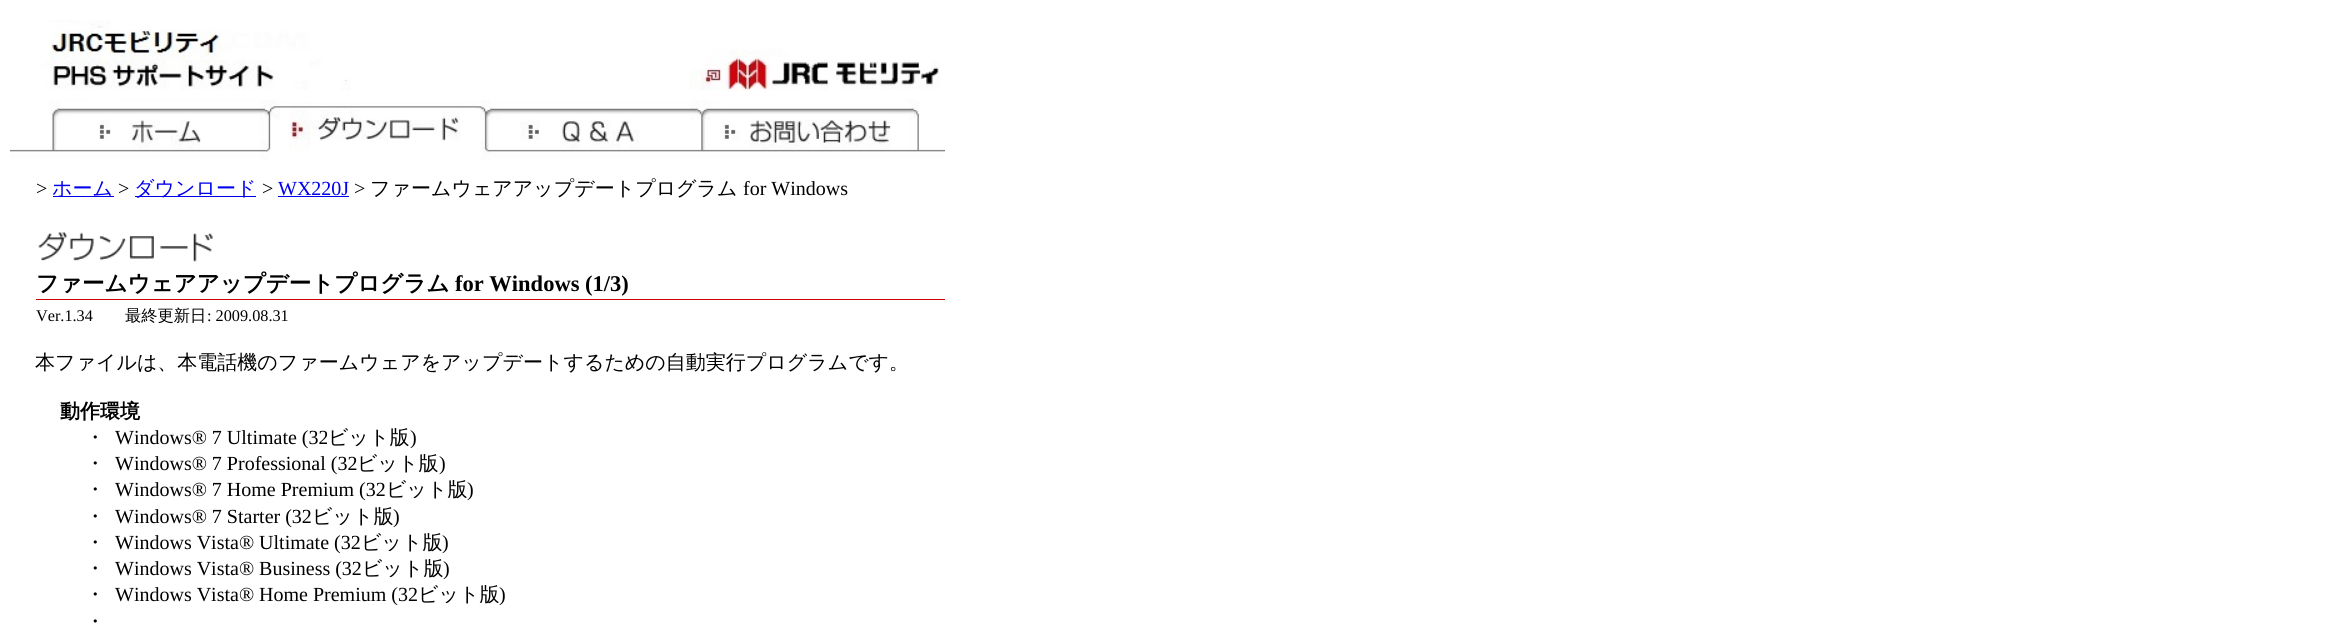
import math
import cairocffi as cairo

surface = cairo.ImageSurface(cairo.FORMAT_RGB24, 2334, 623)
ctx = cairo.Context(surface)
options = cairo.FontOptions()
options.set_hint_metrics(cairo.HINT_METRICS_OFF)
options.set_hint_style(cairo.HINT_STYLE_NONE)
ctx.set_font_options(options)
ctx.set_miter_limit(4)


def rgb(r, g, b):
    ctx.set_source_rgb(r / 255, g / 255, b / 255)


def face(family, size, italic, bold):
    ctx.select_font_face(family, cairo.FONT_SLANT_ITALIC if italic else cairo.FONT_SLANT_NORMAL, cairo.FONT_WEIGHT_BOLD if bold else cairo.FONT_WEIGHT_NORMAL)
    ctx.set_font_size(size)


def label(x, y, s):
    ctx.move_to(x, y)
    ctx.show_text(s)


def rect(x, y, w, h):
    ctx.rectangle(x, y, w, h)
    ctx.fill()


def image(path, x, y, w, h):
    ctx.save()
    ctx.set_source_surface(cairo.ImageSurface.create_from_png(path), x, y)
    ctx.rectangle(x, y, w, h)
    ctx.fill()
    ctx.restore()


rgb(255, 255, 255)
ctx.paint()
image('image0.png', 10, 20, 935, 140)
face('Liberation Serif', 20, 0, 0)
rgb(0, 0, 0)
label(36, 195, '>')
rgb(0, 0, 238)
rect(53, 196, 61, 1)
face('WenQuanYi Zen Hei Medium', 20, 0, 0)
label(52, 195, 'ホーム')
face('Liberation Serif', 20, 0, 0)
rgb(0, 0, 0)
label(118, 195, '>')
rgb(0, 0, 238)
rect(135, 196, 121, 1)
face('WenQuanYi Zen Hei Medium', 20, 0, 0)
label(134, 195, 'ダウンロード')
face('Liberation Serif', 20, 0, 0)
rgb(0, 0, 0)
label(262, 195, '>')
rgb(0, 0, 238)
label(278, 195, 'WX220J')
rect(278, 196, 71, 1)
rgb(0, 0, 0)
label(354, 195, '>')
face('WenQuanYi Zen Hei Medium', 20, 0, 0)
label(370, 195, 'ファームウェアアップデートプログラム')
face('Liberation Serif', 20, 0, 0)
label(743, 195, 'for Windows')
image('image1.png', 38, 232, 175, 30)
face('WenQuanYi Zen Hei', 22.5, 0, 1)
label(36, 291, 'ファームウェアアップデートプログラム')
face('Liberation Serif', 22.5, 0, 1)
label(455, 291, 'for Windows (1/3)')
rgb(204, 0, 0)
rect(36, 299, 909, 1)
face('Liberation Serif', 16.25, 0, 0)
rgb(0, 0, 0)
label(36, 321, 'Ver.1.34')
face('WenQuanYi Zen Hei Medium', 16.25, 0, 0)
label(125, 321, '最終更新日')
face('Liberation Serif', 16.25, 0, 0)
label(207, 321, ': 2009.08.31')
face('WenQuanYi Zen Hei Medium', 20, 0, 0)
label(35, 369, '本ファイルは、本電話機のファームウェアをアップデートするための自動実行プログラムです。')
face('WenQuanYi Zen Hei', 20, 0, 1)
label(60, 418, '動作環境')
face('WenQuanYi Zen Hei Medium', 20, 0, 0)
label(85, 444, '・')
face('Liberation Serif', 20, 0, 0)
label(115, 444, 'Windows® 7 Ultimate (32')
face('WenQuanYi Zen Hei Medium', 20, 0, 0)
label(328, 444, 'ビット版')
face('Liberation Serif', 20, 0, 0)
label(410, 444, ')')
face('WenQuanYi Zen Hei Medium', 20, 0, 0)
label(85, 470, '・')
face('Liberation Serif', 20, 0, 0)
label(115, 470, 'Windows® 7 Professional (32')
face('WenQuanYi Zen Hei Medium', 20, 0, 0)
label(357, 470, 'ビット版')
face('Liberation Serif', 20, 0, 0)
label(439, 470, ')')
face('WenQuanYi Zen Hei Medium', 20, 0, 0)
label(85, 496, '・')
face('Liberation Serif', 20, 0, 0)
label(115, 496, 'Windows® 7 Home Premium (32')
face('WenQuanYi Zen Hei Medium', 20, 0, 0)
label(386, 496, 'ビット版')
face('Liberation Serif', 20, 0, 0)
label(467, 496, ')')
face('WenQuanYi Zen Hei Medium', 20, 0, 0)
label(85, 523, '・')
face('Liberation Serif', 20, 0, 0)
label(115, 523, 'Windows® 7 Starter (32')
face('WenQuanYi Zen Hei Medium', 20, 0, 0)
label(312, 523, 'ビット版')
face('Liberation Serif', 20, 0, 0)
label(393, 523, ')')
face('WenQuanYi Zen Hei Medium', 20, 0, 0)
label(85, 549, '・')
face('Liberation Serif', 20, 0, 0)
label(115, 549, 'Windows Vista® Ultimate (32')
face('WenQuanYi Zen Hei Medium', 20, 0, 0)
label(361, 549, 'ビット版')
face('Liberation Serif', 20, 0, 0)
label(442, 549, ')')
face('WenQuanYi Zen Hei Medium', 20, 0, 0)
label(85, 575, '・')
face('Liberation Serif', 20, 0, 0)
label(115, 575, 'Windows Vista® Business (32')
face('WenQuanYi Zen Hei Medium', 20, 0, 0)
label(362, 575, 'ビット版')
face('Liberation Serif', 20, 0, 0)
label(443, 575, ')')
face('WenQuanYi Zen Hei Medium', 20, 0, 0)
label(85, 601, '・')
face('Liberation Serif', 20, 0, 0)
label(115, 601, 'Windows Vista® Home Premium (32')
face('WenQuanYi Zen Hei Medium', 20, 0, 0)
label(418, 601, 'ビット版')
face('Liberation Serif', 20, 0, 0)
label(499, 601, ')')
face('WenQuanYi Zen Hei Medium', 20, 0, 0)
label(85, 628, '・')
surface.write_to_png('render.png')
